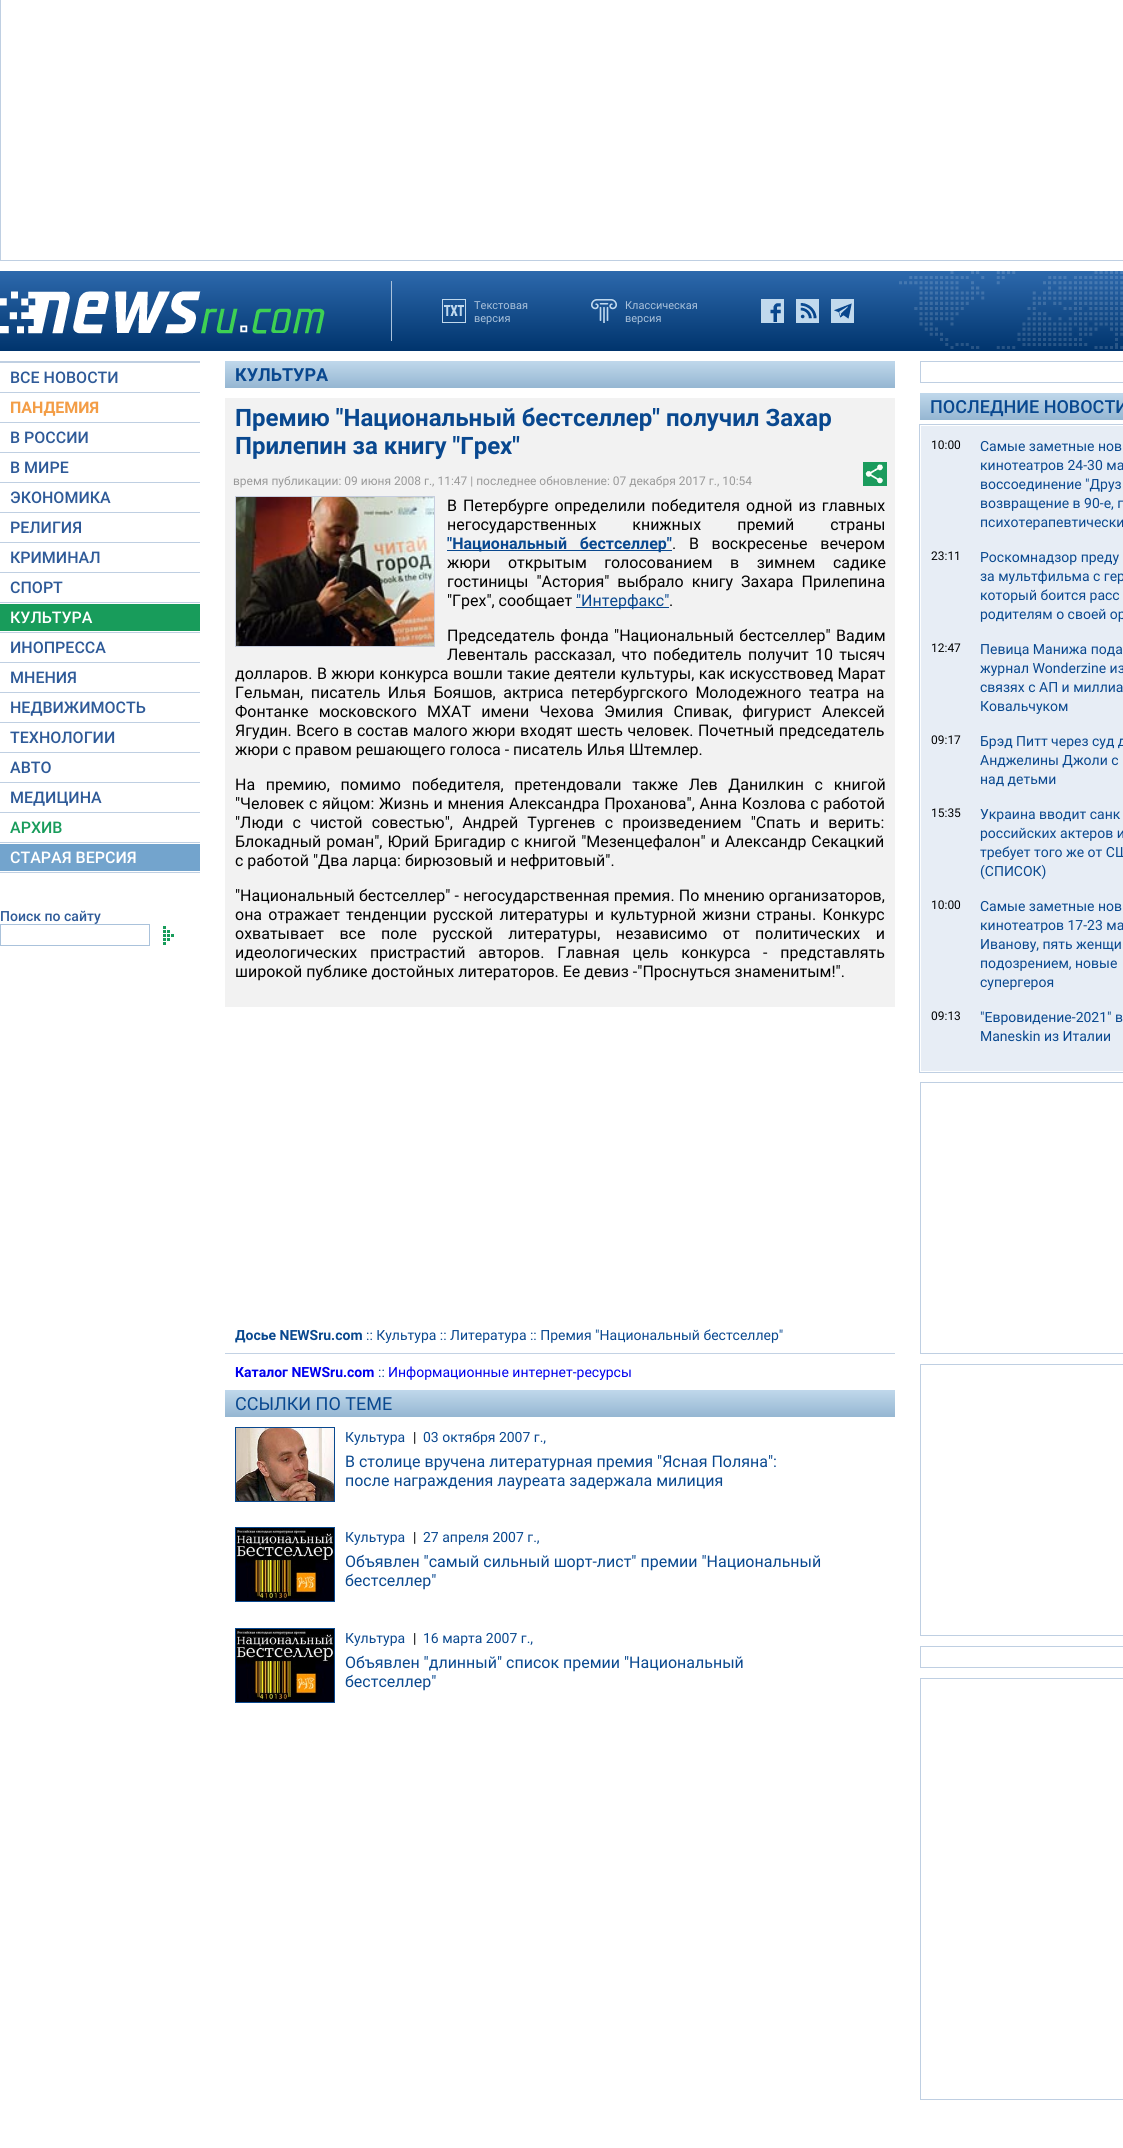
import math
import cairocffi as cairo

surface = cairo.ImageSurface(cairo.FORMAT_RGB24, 1123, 2148)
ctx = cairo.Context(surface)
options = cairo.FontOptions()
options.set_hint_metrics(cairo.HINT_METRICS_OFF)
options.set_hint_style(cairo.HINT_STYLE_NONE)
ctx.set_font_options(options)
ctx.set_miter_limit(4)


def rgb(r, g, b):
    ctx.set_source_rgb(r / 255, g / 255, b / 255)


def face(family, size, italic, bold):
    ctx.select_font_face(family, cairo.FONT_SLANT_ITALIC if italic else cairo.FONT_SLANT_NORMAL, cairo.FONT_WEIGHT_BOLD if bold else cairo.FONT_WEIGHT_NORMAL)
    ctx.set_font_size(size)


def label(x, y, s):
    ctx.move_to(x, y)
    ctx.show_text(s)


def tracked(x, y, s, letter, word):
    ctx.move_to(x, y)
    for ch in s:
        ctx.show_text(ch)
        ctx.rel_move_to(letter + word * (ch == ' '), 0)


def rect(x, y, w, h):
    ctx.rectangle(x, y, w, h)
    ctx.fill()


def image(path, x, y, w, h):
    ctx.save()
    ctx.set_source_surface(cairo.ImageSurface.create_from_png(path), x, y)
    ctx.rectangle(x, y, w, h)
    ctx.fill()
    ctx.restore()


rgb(255, 255, 255)
ctx.paint()
ctx.rectangle(0.5, -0.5, 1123, 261)
rgb(191, 207, 226)
ctx.set_line_width(1)
ctx.stroke()
gradient = cairo.LinearGradient(625, 271, 625, 351)
gradient.add_color_stop_rgba(0, 0.176, 0.412, 0.678, 1)
gradient.add_color_stop_rgba(1, 0, 0.204, 0.427, 1)
ctx.set_source(gradient)
rect(0, 271, 1123, 80)
image('image0.png', 0, 291, 325, 43)
rgb(170, 194, 219)
rect(391, 281, 1, 60)
image('image1.png', 442, 299, 24, 24)
face('Roboto', 11, 0, 0)
label(474, 309, 'Текстовая')
label(474, 322, 'версия')
image('image2.png', 591, 299, 26, 24)
label(625, 309, 'Классическая')
label(625, 322, 'версия')
image('image3.png', 761, 299, 23, 24)
image('image4.png', 796, 299, 23, 24)
rgb(8, 70, 141)
rect(834, 303, 18, 16)
image('image5.png', 831, 299, 23, 24)
image('image6.png', 899, 271, 224, 78)
rgb(191, 207, 226)
rect(0, 361, 200, 2)
rect(0, 392, 200, 1)
face('Roboto Medium', 16, 0, 0)
rgb(46, 90, 152)
label(10, 383, 'ВСЕ НОВОСТИ')
rgb(191, 207, 226)
rect(0, 422, 200, 1)
face('Roboto', 16, 0, 1)
rgb(243, 157, 70)
label(10, 413, 'ПАНДЕМИЯ')
rgb(191, 207, 226)
rect(0, 452, 200, 1)
face('Roboto Medium', 16, 0, 0)
rgb(46, 90, 152)
label(10, 443, 'В РОССИИ')
rgb(191, 207, 226)
rect(0, 482, 200, 1)
rgb(46, 90, 152)
label(10, 473, 'В МИРЕ')
rgb(191, 207, 226)
rect(0, 512, 200, 1)
rgb(46, 90, 152)
label(10, 503, 'ЭКОНОМИКА')
rgb(191, 207, 226)
rect(0, 542, 200, 1)
rgb(46, 90, 152)
label(10, 533, 'РЕЛИГИЯ')
rgb(191, 207, 226)
rect(0, 572, 200, 1)
rgb(46, 90, 152)
label(10, 563, 'КРИМИНАЛ')
rgb(191, 207, 226)
rect(0, 602, 200, 1)
rgb(46, 90, 152)
label(10, 593, 'СПОРТ')
rgb(191, 207, 226)
rect(0, 632, 200, 1)
rgb(24, 156, 91)
rect(0, 604, 200, 27)
rgb(255, 255, 255)
label(10, 623, 'КУЛЬТУРА')
rgb(191, 207, 226)
rect(0, 662, 200, 1)
rgb(46, 90, 152)
label(10, 653, 'ИНОПРЕССА')
rgb(191, 207, 226)
rect(0, 692, 200, 1)
rgb(46, 90, 152)
label(10, 683, 'МНЕНИЯ')
rgb(191, 207, 226)
rect(0, 722, 200, 1)
rgb(46, 90, 152)
label(10, 713, 'НЕДВИЖИМОСТЬ')
rgb(191, 207, 226)
rect(0, 752, 200, 1)
rgb(46, 90, 152)
label(10, 743, 'ТЕХНОЛОГИИ')
rgb(191, 207, 226)
rect(0, 782, 200, 1)
rgb(46, 90, 152)
label(10, 773, 'АВТО')
rgb(191, 207, 226)
rect(0, 812, 200, 1)
rgb(46, 90, 152)
label(10, 803, 'МЕДИЦИНА')
rgb(191, 207, 226)
rect(0, 842, 200, 1)
rgb(24, 156, 91)
label(10, 833, 'АРХИВ')
rgb(191, 207, 226)
rect(0, 872, 200, 1)
rgb(115, 164, 205)
rect(0, 844, 200, 27)
rgb(255, 255, 255)
label(10, 863, 'СТАРАЯ ВЕРСИЯ')
face('Roboto Medium', 14, 0, 0)
rgb(46, 90, 152)
label(0, 921, 'Поиск по сайту')
ctx.rectangle(0.5, 924.5, 149, 21)
rgb(170, 194, 219)
ctx.stroke()
image('image7.png', 163, 926, 11, 19)
gradient = cairo.LinearGradient(560, 361, 560, 388)
gradient.add_color_stop_rgba(0, 0.753, 0.847, 0.925, 1)
gradient.add_color_stop_rgba(1, 0.584, 0.714, 0.82, 1)
ctx.set_source(gradient)
rect(225, 361, 670, 27)
face('Roboto', 18, 0, 1)
rgb(9, 72, 143)
label(235, 381, 'КУЛЬТУРА')
rgb(242, 242, 242)
rect(225, 398, 670, 609)
face('Roboto', 24, 0, 1)
rgb(9, 72, 143)
label(235, 426, 'Премию "Национальный бестселлер" получил Захар')
label(235, 454, 'Прилепин за книгу "Грех"')
face('Roboto', 12, 0, 0)
rgb(153, 153, 153)
label(233, 485, 'время публикации: 09 июня 2008 г., 11:47 | последнее обновление: 07 декабря 2017 г., 10:54')
image('image8.png', 863, 462, 24, 24)
ctx.rectangle(235.5, 496.5, 199, 150)
rgb(199, 206, 223)
ctx.stroke()
image('image9.png', 236, 497, 198, 149)
face('Roboto', 16, 0, 0)
rgb(0, 0, 0)
tracked(447, 511, 'В Петербурге определили победителя одной из главных', 0, 2)
tracked(447, 530, 'негосударственных книжных премий страны', 0, 32)
rgb(9, 72, 143)
rect(447, 550, 225, 1)
face('Roboto', 16, 0, 1)
tracked(447, 549, '"Национальный бестселлер"', 0, 8.75)
face('Roboto', 16, 0, 0)
rgb(0, 0, 0)
tracked(672, 549, '. В воскресенье вечером', 0, 8.75)
tracked(447, 568, 'жюри открытым голосованием в зимнем садике', 0, 13.5)
tracked(447, 587, 'гостиницы "Астория" выбрало книгу Захара Прилепина', 0, 4)
label(447, 606, '"Грех", сообщает')
rgb(9, 72, 143)
rect(576, 607, 93, 1)
label(576, 606, '"Интерфакс"')
rgb(0, 0, 0)
label(669, 606, '.')
tracked(447, 641, 'Председатель фонда "Национальный бестселлер" Вадим', 0, 1.5)
tracked(447, 660, 'Левенталь рассказал, что победитель получит 10 тысяч', 0, 2.25)
tracked(235, 679, 'долларов. В жюри конкурса вошли такие деятели культуры, как искусствовед Марат', 0, 0.5)
tracked(235, 698, 'Гельман, писатель Илья Бояшов, актриса петербургского Молодежного театра на', 0, 3.5)
tracked(235, 717, 'Фонтанке московского МХАТ имени Чехова Эмилия Спивак, фигурист Алексей', 0, 6.25)
tracked(235, 736, 'Ягудин. Всего в состав малого жюри входят шесть человек. Почетный председатель', 0, 0.5)
label(235, 755, 'жюри с правом решающего голоса - писатель Илья Штемлер.')
tracked(235, 790, 'Hа премию, помимо победителя, претендовали также Лев Данилкин с книгой', 0, 6.75)
tracked(235, 809, '"Человек с яйцом: Жизнь и мнения Александра Проханова", Анна Козлова с работой', 0, 0.75)
tracked(235, 828, '"Люди с чистой совестью", Андрей Тургенев с произведением "Спать и верить:', 0, 5.25)
tracked(235, 847, 'Блокадный роман", Юрий Бригадир с книгой "Мезенцефалон" и Александр Секацкий', 0, 1)
label(235, 866, 'с работой "Два ларца: бирюзовый и нефритовый".')
tracked(235, 901, '"Национальный бестселлер" - негосударственная премия. По мнению организаторов,', 0, 0.25)
tracked(235, 920, 'она отражает тенденции русской литературы и культурной жизни страны. Конкурс', 0, 2.25)
tracked(235, 939, 'охватывает все поле русской литературы, независимо от политических и', 0, 11.5)
tracked(235, 958, 'идеологических пристрастий авторов. Главная цель конкурса - представлять', 0, 8.75)
label(235, 977, 'широкой публике достойных литераторов. Ее девиз -"Проснуться знаменитым!".')
rgb(195, 210, 228)
rect(225, 1353, 670, 1)
face('Roboto', 14, 0, 1)
rgb(9, 72, 143)
label(235, 1340, 'Досье NEWSru.com')
face('Roboto', 14, 0, 0)
label(366, 1340, ':: Культура :: Литература :: Премия "Национальный бестселлер"')
face('Roboto', 14, 0, 1)
rgb(0, 0, 238)
label(235, 1377, 'Каталог NEWSru.com')
face('Roboto', 14, 0, 0)
rgb(9, 72, 143)
label(378, 1377, '::')
rgb(0, 0, 238)
label(388, 1377, 'Информационные интернет-ресурсы')
gradient = cairo.LinearGradient(560, 1390, 560, 1417)
gradient.add_color_stop_rgba(0, 0.753, 0.847, 0.925, 1)
gradient.add_color_stop_rgba(1, 0.584, 0.714, 0.82, 1)
ctx.set_source(gradient)
rect(225, 1390, 670, 27)
face('Roboto', 18, 0, 0)
rgb(9, 72, 143)
label(235, 1410, 'ССЫЛКИ ПО ТЕМЕ')
ctx.rectangle(235.5, 1427.5, 99, 74)
ctx.stroke()
image('image10.png', 236, 1428, 98, 73)
face('Roboto', 14, 0, 0)
label(345, 1442, 'Культура')
rgb(0, 0, 0)
label(413, 1442, '|')
rgb(9, 72, 143)
label(423, 1442, '03 октября 2007 г.,')
face('Roboto', 16, 0, 0)
label(345, 1467, 'В столице вручена литературная премия "Ясная Поляна":')
label(345, 1486, 'после награждения лауреата задержала милиция')
ctx.rectangle(235.5, 1527.5, 99, 74)
ctx.stroke()
image('image11.png', 236, 1528, 98, 73)
face('Roboto', 14, 0, 0)
label(345, 1542, 'Культура')
rgb(0, 0, 0)
label(413, 1542, '|')
rgb(9, 72, 143)
label(423, 1542, '27 апреля 2007 г.,')
face('Roboto', 16, 0, 0)
label(345, 1567, 'Объявлен "самый сильный шорт-лист" премии "Национальный')
label(345, 1586, 'бестселлер"')
ctx.rectangle(235.5, 1628.5, 99, 74)
ctx.stroke()
image('image11.png', 236, 1629, 98, 73)
face('Roboto', 14, 0, 0)
label(345, 1643, 'Культура')
rgb(0, 0, 0)
label(413, 1643, '|')
rgb(9, 72, 143)
label(423, 1643, '16 марта 2007 г.,')
face('Roboto', 16, 0, 0)
label(345, 1668, 'Объявлен "длинный" список премии "Национальный')
label(345, 1687, 'бестселлер"')
ctx.rectangle(920.5, 361.5, 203, 21)
rgb(191, 207, 226)
ctx.stroke()
gradient = cairo.LinearGradient(1085, 393, 1085, 420)
gradient.add_color_stop_rgba(0, 0.753, 0.847, 0.925, 1)
gradient.add_color_stop_rgba(1, 0.584, 0.714, 0.82, 1)
ctx.set_source(gradient)
rect(920, 393, 203, 27)
face('Roboto Medium', 18, 0, 0)
rgb(9, 72, 143)
label(930, 413, 'ПОСЛЕДНИЕ НОВОСТИ')
rgb(231, 237, 245)
rect(921, 426, 202, 645)
ctx.rectangle(919.5, 424.5, 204, 648)
rgb(191, 207, 226)
ctx.stroke()
face('Roboto', 12, 0, 0)
rgb(0, 0, 0)
label(931, 449, '10:00')
face('Roboto', 14, 0, 0)
rgb(9, 72, 143)
label(980, 451, 'Самые заметные нов')
label(980, 470, 'кинотеатров 24-30 ма')
label(980, 489, 'воссоединение "Друз')
label(980, 508, 'возвращение в 90-е, п')
label(980, 527, 'психотерапевтически')
face('Roboto', 12, 0, 0)
rgb(0, 0, 0)
label(931, 560, '23:11')
face('Roboto', 14, 0, 0)
rgb(9, 72, 143)
label(980, 562, 'Роскомнадзор преду')
label(980, 581, 'за мультфильма c гер')
label(980, 600, 'который боится расс')
label(980, 619, 'родителям о своей ор')
face('Roboto', 12, 0, 0)
rgb(0, 0, 0)
label(931, 652, '12:47')
face('Roboto', 14, 0, 0)
rgb(9, 72, 143)
label(980, 654, 'Певица Манижа пода')
label(980, 673, 'журнал Wonderzine из')
label(980, 692, 'связях с АП и миллиа')
label(980, 711, 'Ковальчуком')
face('Roboto', 12, 0, 0)
rgb(0, 0, 0)
label(931, 744, '09:17')
face('Roboto', 14, 0, 0)
rgb(9, 72, 143)
label(980, 746, 'Брэд Питт через суд д')
label(980, 765, 'Анджелины Джоли с')
label(980, 784, 'над детьми')
face('Roboto', 12, 0, 0)
rgb(0, 0, 0)
label(931, 817, '15:35')
face('Roboto', 14, 0, 0)
rgb(9, 72, 143)
label(980, 819, 'Украина вводит санк')
label(980, 838, 'российских актеров и')
label(980, 857, 'требует того же от СШ')
label(980, 876, '(СПИСОК)')
face('Roboto', 12, 0, 0)
rgb(0, 0, 0)
label(931, 909, '10:00')
face('Roboto', 14, 0, 0)
rgb(9, 72, 143)
label(980, 911, 'Самые заметные нов')
label(980, 930, 'кинотеатров 17-23 ма')
label(980, 949, 'Иванову, пять женщи')
label(980, 968, 'подозрением, новые')
label(980, 987, 'супергероя')
face('Roboto', 12, 0, 0)
rgb(0, 0, 0)
label(931, 1020, '09:13')
face('Roboto', 14, 0, 0)
rgb(9, 72, 143)
label(980, 1022, '"Евровидение-2021" в')
label(980, 1041, 'Maneskin из Италии')
ctx.rectangle(920.5, 1082.5, 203, 271)
rgb(191, 207, 226)
ctx.stroke()
ctx.rectangle(920.5, 1364.5, 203, 271)
ctx.stroke()
ctx.rectangle(920.5, 1646.5, 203, 21)
ctx.stroke()
ctx.rectangle(920.5, 1678.5, 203, 421)
ctx.stroke()
surface.write_to_png('render.png')
